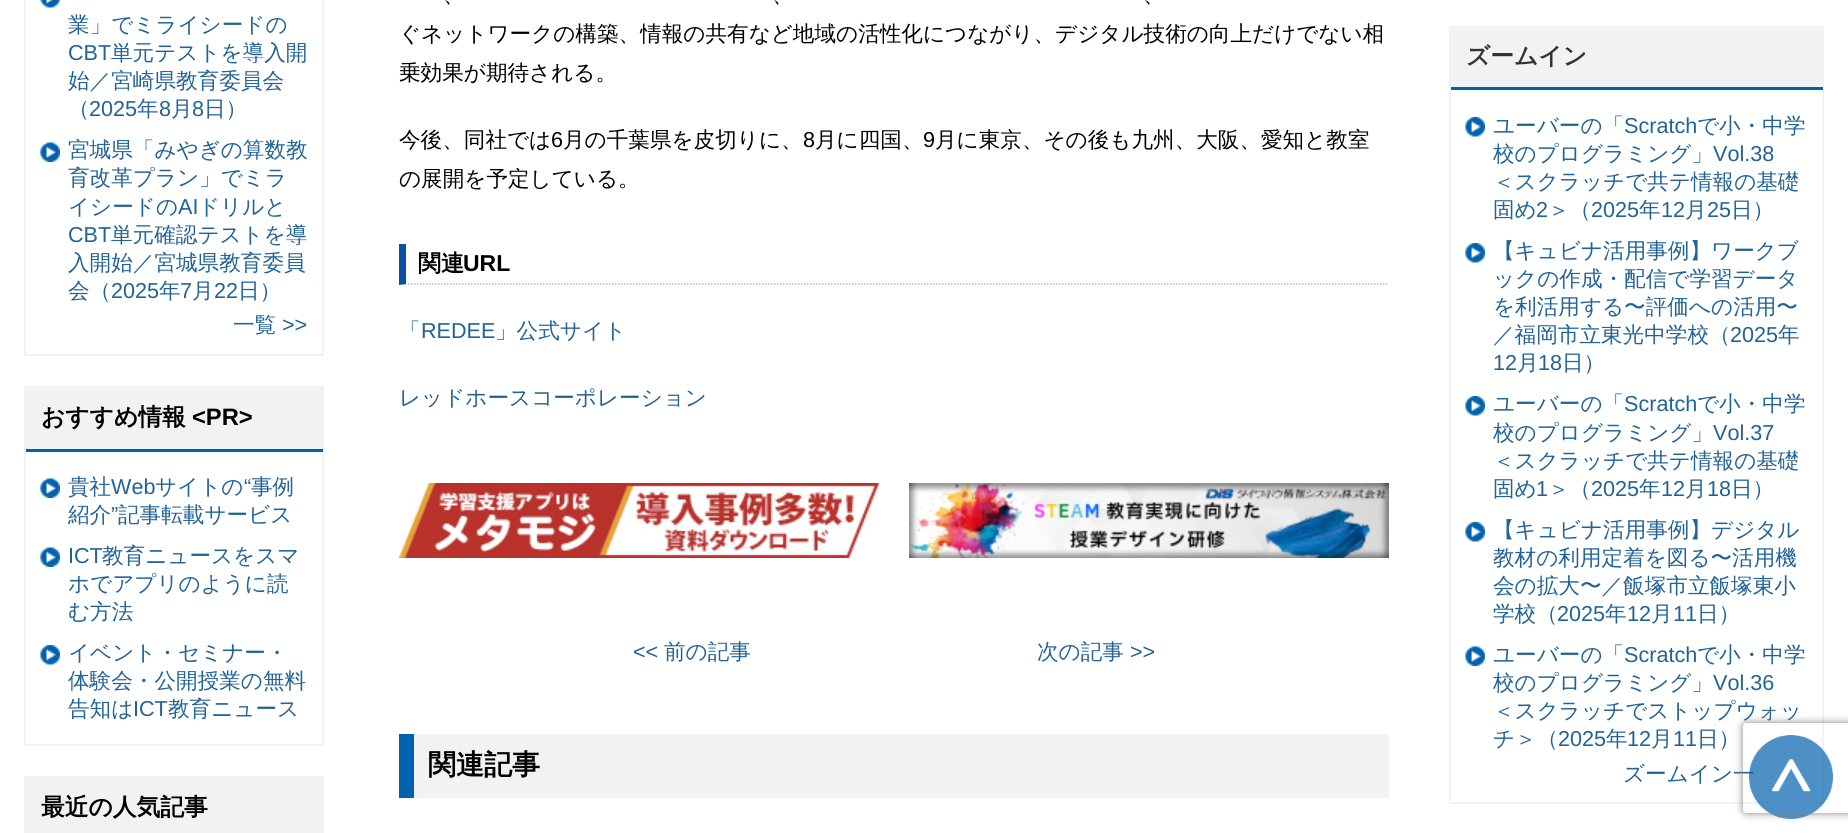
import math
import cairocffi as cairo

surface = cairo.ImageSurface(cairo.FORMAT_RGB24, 1848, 833)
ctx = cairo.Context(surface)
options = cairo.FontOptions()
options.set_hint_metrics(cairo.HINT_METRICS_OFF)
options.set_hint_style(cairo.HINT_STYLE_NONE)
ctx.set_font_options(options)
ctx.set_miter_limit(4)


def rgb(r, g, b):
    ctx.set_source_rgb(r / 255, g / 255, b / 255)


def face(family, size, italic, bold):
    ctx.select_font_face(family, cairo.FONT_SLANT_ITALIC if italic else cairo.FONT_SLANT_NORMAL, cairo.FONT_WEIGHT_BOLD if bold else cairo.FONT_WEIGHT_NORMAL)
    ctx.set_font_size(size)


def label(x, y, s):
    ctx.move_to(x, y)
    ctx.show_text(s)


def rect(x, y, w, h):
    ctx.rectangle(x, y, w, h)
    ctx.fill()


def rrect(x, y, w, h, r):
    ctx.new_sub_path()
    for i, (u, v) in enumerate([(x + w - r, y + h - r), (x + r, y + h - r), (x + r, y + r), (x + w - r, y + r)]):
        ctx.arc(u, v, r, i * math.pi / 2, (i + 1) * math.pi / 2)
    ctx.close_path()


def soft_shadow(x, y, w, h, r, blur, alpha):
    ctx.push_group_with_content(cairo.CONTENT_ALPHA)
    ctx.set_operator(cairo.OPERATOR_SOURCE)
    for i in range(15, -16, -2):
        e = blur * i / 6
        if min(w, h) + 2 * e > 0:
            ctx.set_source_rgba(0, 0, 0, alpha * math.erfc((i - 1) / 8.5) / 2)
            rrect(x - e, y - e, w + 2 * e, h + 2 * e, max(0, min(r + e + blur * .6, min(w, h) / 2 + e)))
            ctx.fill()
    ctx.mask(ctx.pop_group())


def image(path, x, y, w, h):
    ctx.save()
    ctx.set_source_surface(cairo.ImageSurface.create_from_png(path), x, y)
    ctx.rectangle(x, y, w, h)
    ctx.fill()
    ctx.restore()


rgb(255, 255, 255)
ctx.paint()
ctx.rectangle(25, -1, 298, 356)
rgb(242, 242, 242)
ctx.stroke()
image('image0.png', 40, 0, 20, 8)
face('WenQuanYi Zen Hei Medium', 21.6, 0, 0)
rgb(34, 99, 150)
label(68, 32, '業」でミライシードの')
face('Liberation Sans', 21.6, 0, 0)
label(68, 60, 'CBT')
face('WenQuanYi Zen Hei Medium', 21.6, 0, 0)
label(111, 60, '単元テストを導入開')
label(68, 88, '始／宮崎県教育委員会')
label(68, 116, '（')
face('Liberation Sans', 21.6, 0, 0)
label(89, 116, '2025')
face('WenQuanYi Zen Hei Medium', 21.6, 0, 0)
label(137, 116, '年')
face('Liberation Sans', 21.6, 0, 0)
label(159, 116, '8')
face('WenQuanYi Zen Hei Medium', 21.6, 0, 0)
label(171, 116, '月')
face('Liberation Sans', 21.6, 0, 0)
label(192, 116, '8')
face('WenQuanYi Zen Hei Medium', 21.6, 0, 0)
label(204, 116, '日）')
image('image1.png', 40, 142, 20, 20)
label(68, 157, '宮城県「みやぎの算数教')
label(68, 185, '育改革プラン」でミラ')
label(68, 214, 'イシードの')
face('Liberation Sans', 21.6, 0, 0)
label(178, 214, 'AI')
face('WenQuanYi Zen Hei Medium', 21.6, 0, 0)
label(198, 214, 'ドリルと')
face('Liberation Sans', 21.6, 0, 0)
label(68, 242, 'CBT')
face('WenQuanYi Zen Hei Medium', 21.6, 0, 0)
label(111, 242, '単元確認テストを導')
label(68, 270, '入開始／宮城県教育委員')
label(68, 298, '会（')
face('Liberation Sans', 21.6, 0, 0)
label(111, 298, '2025')
face('WenQuanYi Zen Hei Medium', 21.6, 0, 0)
label(159, 298, '年')
face('Liberation Sans', 21.6, 0, 0)
label(180, 298, '7')
face('WenQuanYi Zen Hei Medium', 21.6, 0, 0)
label(192, 298, '月')
face('Liberation Sans', 21.6, 0, 0)
label(214, 298, '22')
face('WenQuanYi Zen Hei Medium', 21.6, 0, 0)
label(238, 298, '日）')
label(233, 332, '一覧')
face('Liberation Sans', 21.6, 0, 0)
label(282, 332, '>>')
ctx.rectangle(25, 387, 298, 358)
rgb(242, 242, 242)
ctx.stroke()
rect(26, 388, 296, 61)
rgb(0, 98, 173)
rect(26, 449, 297, 3)
face('WenQuanYi Zen Hei', 23.75, 0, 1)
rgb(0, 0, 0)
label(41, 425, 'おすすめ情報')
face('Liberation Sans', 23.75, 0, 1)
label(192, 425, '<PR>')
image('image1.png', 40, 478, 20, 20)
face('WenQuanYi Zen Hei Medium', 21.6, 0, 0)
rgb(34, 99, 150)
label(68, 494, '貴社')
face('Liberation Sans', 21.6, 0, 0)
label(111, 494, 'Web')
face('WenQuanYi Zen Hei Medium', 21.6, 0, 0)
label(155, 494, 'サイトの')
face('Liberation Sans', 21.6, 0, 0)
label(244, 494, '“')
face('WenQuanYi Zen Hei Medium', 21.6, 0, 0)
label(251, 494, '事例')
label(68, 522, '紹介')
face('Liberation Sans', 21.6, 0, 0)
label(111, 522, '”')
face('WenQuanYi Zen Hei Medium', 21.6, 0, 0)
label(118, 522, '記事転載サービス')
image('image1.png', 40, 547, 20, 20)
face('Liberation Sans', 21.6, 0, 0)
label(68, 563, 'ICT')
face('WenQuanYi Zen Hei Medium', 21.6, 0, 0)
label(102, 563, '教育ニュースをスマ')
label(68, 591, 'ホでアプリのように読')
label(68, 619, 'む方法')
image('image2.png', 40, 645, 20, 20)
label(68, 660, 'イベント・セミナー・')
label(68, 688, '体験会・公開授業の無料')
label(68, 716, '告知は')
face('Liberation Sans', 21.6, 0, 0)
label(133, 716, 'ICT')
face('WenQuanYi Zen Hei Medium', 21.6, 0, 0)
label(168, 716, '教育ニュース')
ctx.rectangle(25, 777, 298, 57)
rgb(242, 242, 242)
ctx.stroke()
rect(26, 778, 296, 55)
face('WenQuanYi Zen Hei', 23.75, 0, 1)
rgb(0, 0, 0)
label(41, 815, '最近の人気記事')
face('WenQuanYi Zen Hei Medium', 21.6, 0, 0)
label(443, 2, '、')
label(772, 2, '、')
label(1143, 2, '、')
label(399, 41, 'ぐネットワークの構築、情報の共有など地域の活性化につながり、デジタル技術の向上だけでない相')
label(399, 80, '乗効果が期待される。')
label(399, 147, '今後、同社では')
face('Liberation Sans', 21.6, 0, 0)
label(551, 147, '6')
face('WenQuanYi Zen Hei Medium', 21.6, 0, 0)
label(563, 147, '月の千葉県を皮切りに、')
face('Liberation Sans', 21.6, 0, 0)
label(803, 147, '8')
face('WenQuanYi Zen Hei Medium', 21.6, 0, 0)
label(815, 147, '月に四国、')
face('Liberation Sans', 21.6, 0, 0)
label(923, 147, '9')
face('WenQuanYi Zen Hei Medium', 21.6, 0, 0)
label(935, 147, '月に東京、その後も九州、大阪、愛知と教室')
label(399, 186, 'の展開を予定している。')
ctx.new_path()
ctx.move_to(399, 284)
ctx.line_to(1389, 284)
rgb(187, 187, 187)
ctx.set_line_width(1.5)
ctx.set_dash([1.5, 1.5])
ctx.stroke()
rgb(9, 80, 166)
ctx.new_path()
ctx.move_to(399, 285)
ctx.line_to(399, 244)
ctx.line_to(406, 244)
ctx.line_to(406, 284)
ctx.close_path()
ctx.fill()
face('WenQuanYi Zen Hei', 23, 0, 1)
rgb(0, 0, 0)
label(418, 271, '関連')
face('Liberation Sans', 23, 0, 1)
label(463, 271, 'URL')
face('WenQuanYi Zen Hei Medium', 21.6, 0, 0)
rgb(34, 99, 150)
label(399, 338, '「')
face('Liberation Sans', 21.6, 0, 0)
label(421, 338, 'REDEE')
face('WenQuanYi Zen Hei Medium', 21.6, 0, 0)
label(495, 338, '」公式サイト')
label(399, 405, 'レッドホースコーポレーション')
image('image3.png', 399, 483, 480, 75)
image('image4.png', 909, 483, 480, 75)
face('Liberation Sans', 21.6, 0, 0)
label(633, 659, '<<')
face('WenQuanYi Zen Hei Medium', 21.6, 0, 0)
label(664, 659, '前の記事')
label(1037, 659, '次の記事')
face('Liberation Sans', 21.6, 0, 0)
label(1130, 659, '>>')
rgb(242, 242, 242)
rect(414, 734, 975, 64)
rgb(0, 98, 173)
rect(399, 734, 15, 64)
face('WenQuanYi Zen Hei', 28, 0, 1)
rgb(0, 0, 0)
label(428, 774, '関連記事')
ctx.rectangle(1450, 27, 373, 776)
rgb(242, 242, 242)
ctx.set_line_width(2)
ctx.set_dash([])
ctx.stroke()
rect(1451, 28, 371, 59)
rgb(0, 98, 173)
rect(1451, 87, 372, 3)
face('WenQuanYi Zen Hei', 23.75, 0, 1)
rgb(51, 51, 51)
label(1466, 64, 'ズームイン')
image('image5.png', 1465, 117, 20, 20)
face('WenQuanYi Zen Hei Medium', 21.6, 0, 0)
rgb(34, 99, 150)
label(1493, 133, 'ユーバーの「')
face('Liberation Sans', 21.6, 0, 0)
label(1624, 133, 'Scratch')
face('WenQuanYi Zen Hei Medium', 21.6, 0, 0)
label(1697, 133, 'で小・中学')
label(1493, 161, '校のプログラミング」')
face('Liberation Sans', 21.6, 0, 0)
label(1713, 161, 'Vol.38')
face('WenQuanYi Zen Hei Medium', 21.6, 0, 0)
label(1493, 189, '＜スクラッチで共テ情報の基礎')
label(1493, 217, '固め')
face('Liberation Sans', 21.6, 0, 0)
label(1536, 217, '2')
face('WenQuanYi Zen Hei Medium', 21.6, 0, 0)
label(1548, 217, '＞（')
face('Liberation Sans', 21.6, 0, 0)
label(1591, 217, '2025')
face('WenQuanYi Zen Hei Medium', 21.6, 0, 0)
label(1639, 217, '年')
face('Liberation Sans', 21.6, 0, 0)
label(1661, 217, '12')
face('WenQuanYi Zen Hei Medium', 21.6, 0, 0)
label(1685, 217, '月')
face('Liberation Sans', 21.6, 0, 0)
label(1707, 217, '25')
face('WenQuanYi Zen Hei Medium', 21.6, 0, 0)
label(1731, 217, '日）')
image('image5.png', 1465, 243, 20, 20)
label(1493, 258, '【キュビナ活用事例】ワークブ')
label(1493, 286, 'ックの作成・配信で学習データ')
label(1493, 314, 'を利活用する〜評価への活用〜')
label(1493, 342, '／福岡市立東光中学校（')
face('Liberation Sans', 21.6, 0, 0)
label(1730, 342, '2025')
face('WenQuanYi Zen Hei Medium', 21.6, 0, 0)
label(1778, 342, '年')
face('Liberation Sans', 21.6, 0, 0)
label(1493, 370, '12')
face('WenQuanYi Zen Hei Medium', 21.6, 0, 0)
label(1517, 370, '月')
face('Liberation Sans', 21.6, 0, 0)
label(1538, 370, '18')
face('WenQuanYi Zen Hei Medium', 21.6, 0, 0)
label(1562, 370, '日）')
image('image5.png', 1465, 396, 20, 20)
label(1493, 411, 'ユーバーの「')
face('Liberation Sans', 21.6, 0, 0)
label(1624, 411, 'Scratch')
face('WenQuanYi Zen Hei Medium', 21.6, 0, 0)
label(1697, 411, 'で小・中学')
label(1493, 440, '校のプログラミング」')
face('Liberation Sans', 21.6, 0, 0)
label(1713, 440, 'Vol.37')
face('WenQuanYi Zen Hei Medium', 21.6, 0, 0)
label(1493, 468, '＜スクラッチで共テ情報の基礎')
label(1493, 496, '固め')
face('Liberation Sans', 21.6, 0, 0)
label(1536, 496, '1')
face('WenQuanYi Zen Hei Medium', 21.6, 0, 0)
label(1548, 496, '＞（')
face('Liberation Sans', 21.6, 0, 0)
label(1591, 496, '2025')
face('WenQuanYi Zen Hei Medium', 21.6, 0, 0)
label(1639, 496, '年')
face('Liberation Sans', 21.6, 0, 0)
label(1661, 496, '12')
face('WenQuanYi Zen Hei Medium', 21.6, 0, 0)
label(1685, 496, '月')
face('Liberation Sans', 21.6, 0, 0)
label(1707, 496, '18')
face('WenQuanYi Zen Hei Medium', 21.6, 0, 0)
label(1731, 496, '日）')
image('image5.png', 1465, 522, 20, 20)
label(1493, 537, '【キュビナ活用事例】デジタル')
label(1493, 565, '教材の利用定着を図る〜活用機')
label(1493, 593, '会の拡大〜／飯塚市立飯塚東小')
label(1493, 621, '学校（')
face('Liberation Sans', 21.6, 0, 0)
label(1557, 621, '2025')
face('WenQuanYi Zen Hei Medium', 21.6, 0, 0)
label(1605, 621, '年')
face('Liberation Sans', 21.6, 0, 0)
label(1627, 621, '12')
face('WenQuanYi Zen Hei Medium', 21.6, 0, 0)
label(1651, 621, '月')
face('Liberation Sans', 21.6, 0, 0)
label(1673, 621, '11')
face('WenQuanYi Zen Hei Medium', 21.6, 0, 0)
label(1697, 621, '日）')
image('image6.png', 1465, 646, 20, 20)
label(1493, 662, 'ユーバーの「')
face('Liberation Sans', 21.6, 0, 0)
label(1624, 662, 'Scratch')
face('WenQuanYi Zen Hei Medium', 21.6, 0, 0)
label(1697, 662, 'で小・中学')
label(1493, 690, '校のプログラミング」')
face('Liberation Sans', 21.6, 0, 0)
label(1713, 690, 'Vol.36')
face('WenQuanYi Zen Hei Medium', 21.6, 0, 0)
label(1493, 718, '＜スクラッチでストップウォッ')
label(1493, 746, 'チ＞（')
face('Liberation Sans', 21.6, 0, 0)
label(1558, 746, '2025')
face('WenQuanYi Zen Hei Medium', 21.6, 0, 0)
label(1606, 746, '年')
face('Liberation Sans', 21.6, 0, 0)
label(1627, 746, '12')
face('WenQuanYi Zen Hei Medium', 21.6, 0, 0)
label(1651, 746, '月')
face('Liberation Sans', 21.6, 0, 0)
label(1673, 746, '11')
face('WenQuanYi Zen Hei Medium', 21.6, 0, 0)
label(1697, 746, '日）')
label(1623, 781, 'ズームイン一')
image('image7.png', 1749, 735, 84, 84)
ctx.save()
ctx.set_fill_rule(cairo.FILL_RULE_EVEN_ODD)
ctx.new_path()
ctx.move_to(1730, 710)
ctx.line_to(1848, 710)
ctx.line_to(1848, 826)
ctx.line_to(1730, 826)
ctx.close_path()
ctx.move_to(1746, 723)
ctx.line_to(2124, 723)
ctx.curve_to(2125.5, 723, 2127, 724.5, 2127, 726)
ctx.line_to(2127, 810)
ctx.curve_to(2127, 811.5, 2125.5, 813, 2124, 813)
ctx.line_to(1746, 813)
ctx.curve_to(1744.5, 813, 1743, 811.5, 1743, 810)
ctx.line_to(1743, 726)
ctx.curve_to(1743, 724.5, 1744.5, 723, 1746, 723)
ctx.close_path()
ctx.clip()
rgb(128, 128, 128)
soft_shadow(1743, 723, 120, 90, 3, 4, 1)
ctx.restore()
surface.write_to_png('render.png')
